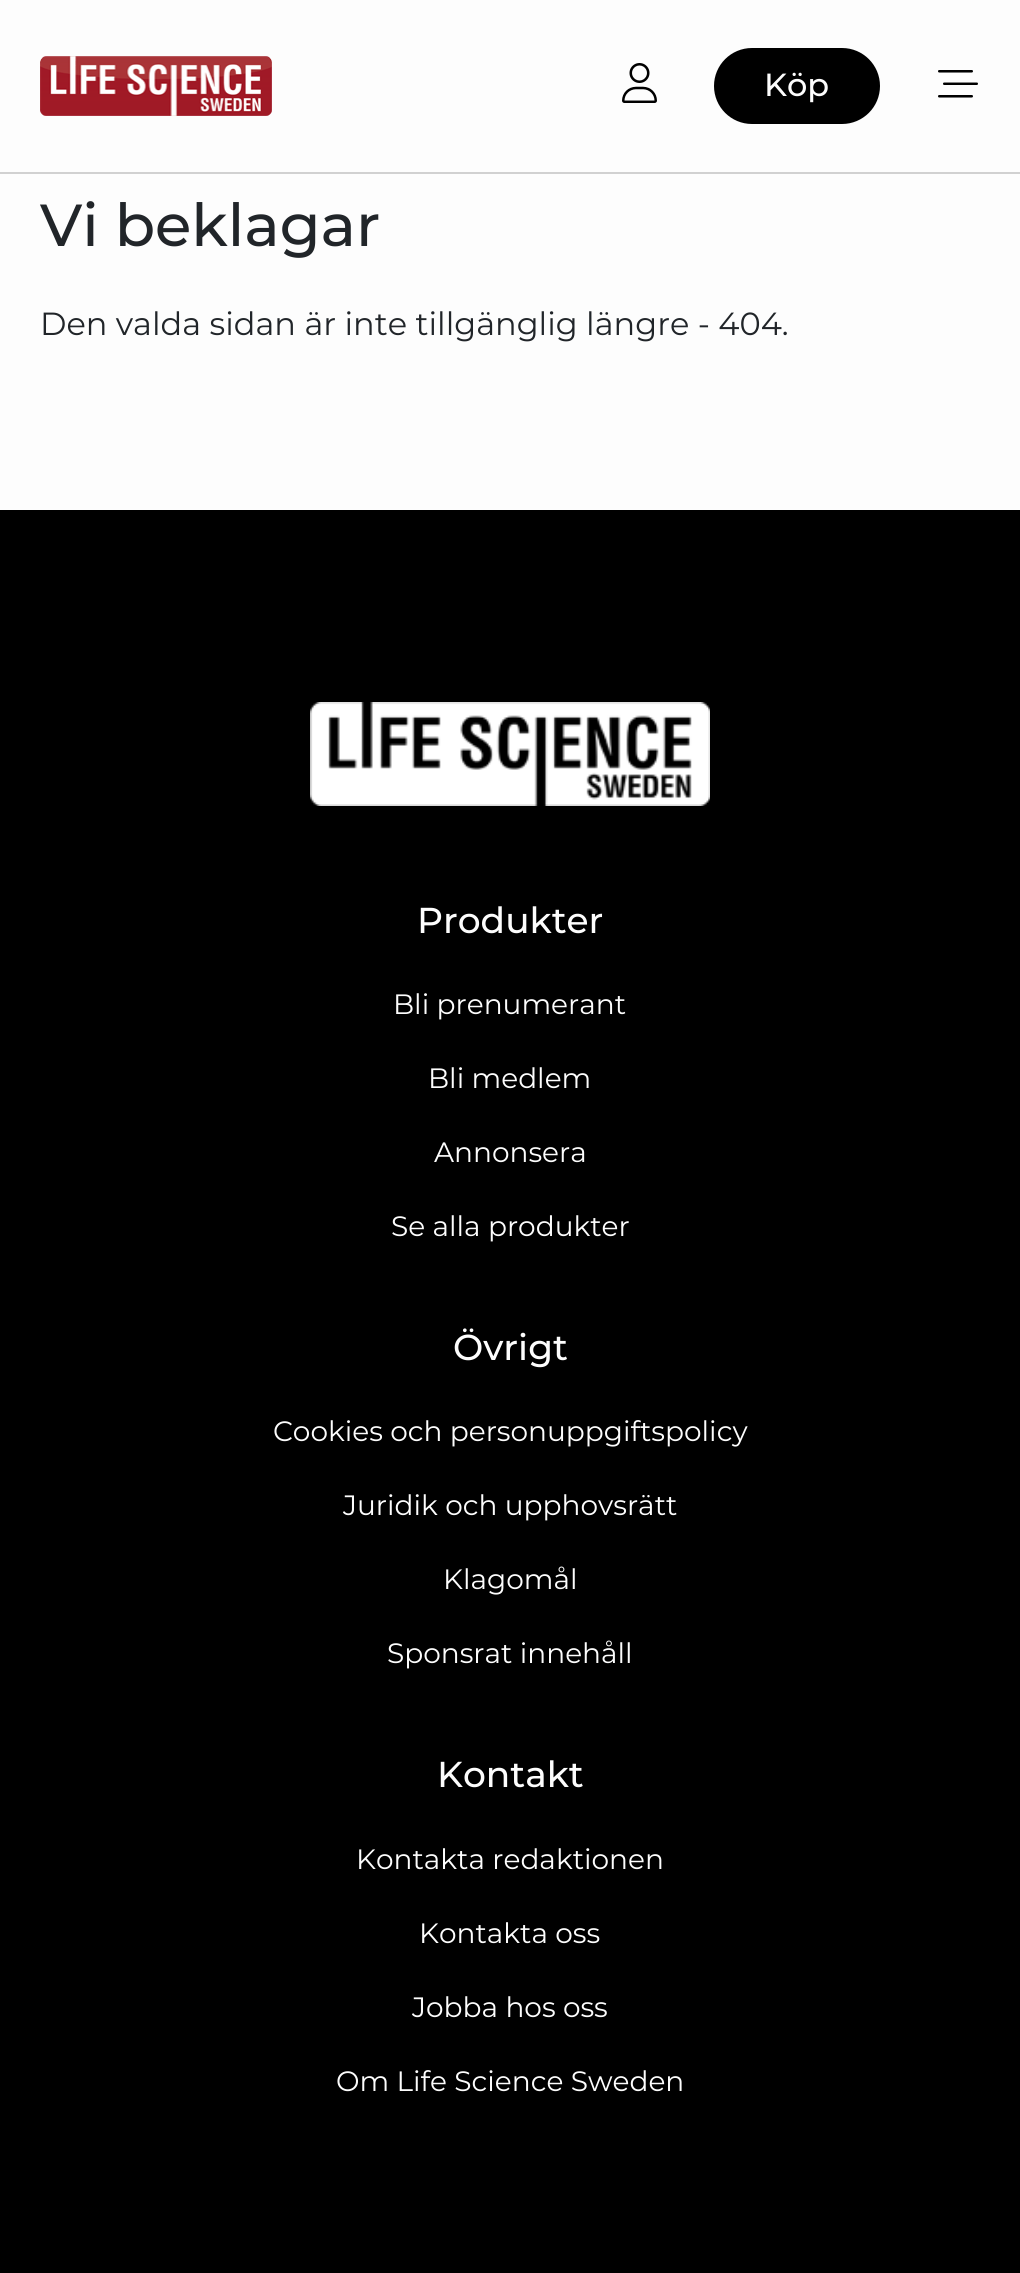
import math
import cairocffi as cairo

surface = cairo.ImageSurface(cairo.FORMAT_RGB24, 1020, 2273)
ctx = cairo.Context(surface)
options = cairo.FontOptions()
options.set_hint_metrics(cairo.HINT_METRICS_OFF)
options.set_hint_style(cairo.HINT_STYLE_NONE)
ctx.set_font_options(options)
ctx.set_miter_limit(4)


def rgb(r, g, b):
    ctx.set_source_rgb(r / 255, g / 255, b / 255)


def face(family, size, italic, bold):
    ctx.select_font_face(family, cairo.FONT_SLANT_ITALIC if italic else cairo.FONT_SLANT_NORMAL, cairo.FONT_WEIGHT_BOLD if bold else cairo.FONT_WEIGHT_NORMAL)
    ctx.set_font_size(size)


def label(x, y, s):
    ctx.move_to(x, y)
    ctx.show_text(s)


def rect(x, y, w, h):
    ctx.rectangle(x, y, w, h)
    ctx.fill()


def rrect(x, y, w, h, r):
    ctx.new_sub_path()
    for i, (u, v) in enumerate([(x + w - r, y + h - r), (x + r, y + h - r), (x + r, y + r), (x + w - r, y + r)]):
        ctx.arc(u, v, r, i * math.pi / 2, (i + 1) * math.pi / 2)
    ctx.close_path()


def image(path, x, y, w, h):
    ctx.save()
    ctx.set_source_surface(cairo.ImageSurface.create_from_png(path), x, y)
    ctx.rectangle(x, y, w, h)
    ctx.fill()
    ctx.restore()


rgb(253, 253, 253)
ctx.paint()
rgb(209, 209, 209)
rect(0, 172, 1020, 2)
image('image0.png', 40, 56, 232, 60)
image('image1.png', 622, 63, 35, 40)
rgb(0, 0, 0)
rrect(715, 49, 164, 74, 37)
ctx.fill_preserve()
ctx.stroke()
face('Montserrat Medium', 32, 0, 0)
rgb(253, 253, 253)
label(764, 96, 'Köp')
image('image2.png', 938, 70, 40, 28)
face('Montserrat Medium', 59.25, 0, 0)
rgb(33, 37, 41)
label(40, 246, 'Vi beklagar')
face('Montserrat', 32, 0, 0)
label(40, 335, 'Den valda sidan är inte tillgänglig längre - 404.')
rgb(0, 0, 0)
rect(0, 510, 1020, 1763)
image('image3.png', 310, 702, 400, 104)
face('Montserrat Medium', 36, 0, 0)
rgb(253, 253, 253)
label(417, 933, 'Produkter')
face('Montserrat', 28, 0, 0)
label(393, 1014, 'Bli prenumerant')
label(428, 1088, 'Bli medlem')
label(434, 1162, 'Annonsera')
label(391, 1236, 'Se alla produkter')
face('Montserrat Medium', 36, 0, 0)
label(453, 1360, 'Övrigt')
face('Montserrat', 28, 0, 0)
label(273, 1441, 'Cookies och personuppgiftspolicy')
label(343, 1515, 'Juridik och upphovsrätt')
label(443, 1589, 'Klagomål')
label(387, 1663, 'Sponsrat innehåll')
face('Montserrat Medium', 36, 0, 0)
label(437, 1787, 'Kontakt')
face('Montserrat', 28, 0, 0)
label(356, 1869, 'Kontakta redaktionen')
label(419, 1943, 'Kontakta oss')
label(412, 2017, 'Jobba hos oss')
label(336, 2091, 'Om Life Science Sweden')
surface.write_to_png('render.png')
